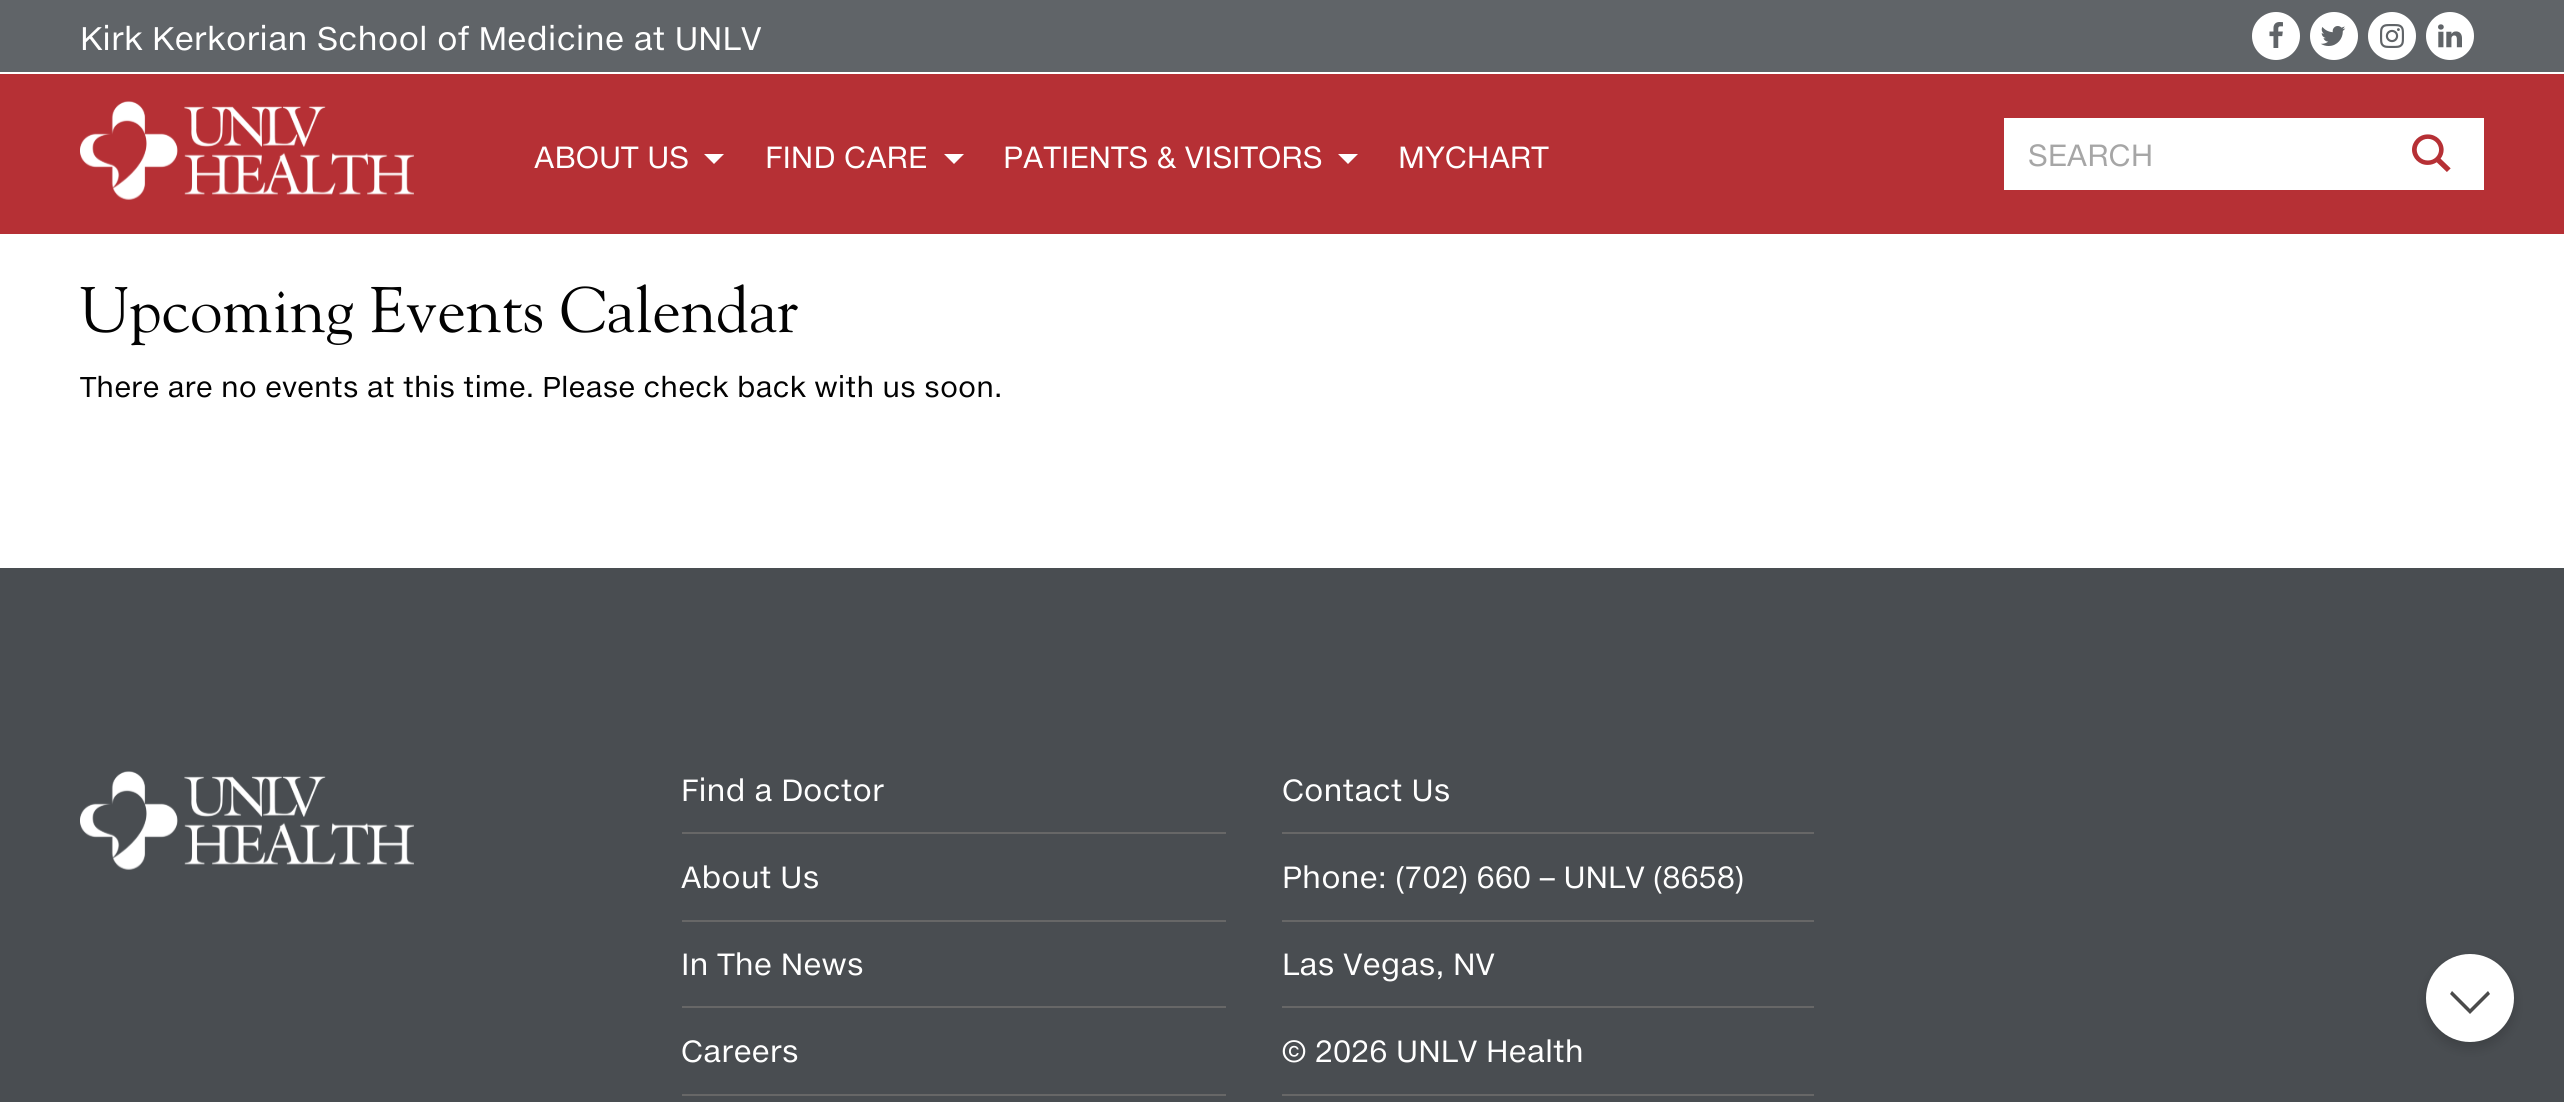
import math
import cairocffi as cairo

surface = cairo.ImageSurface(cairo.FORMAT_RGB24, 2564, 1102)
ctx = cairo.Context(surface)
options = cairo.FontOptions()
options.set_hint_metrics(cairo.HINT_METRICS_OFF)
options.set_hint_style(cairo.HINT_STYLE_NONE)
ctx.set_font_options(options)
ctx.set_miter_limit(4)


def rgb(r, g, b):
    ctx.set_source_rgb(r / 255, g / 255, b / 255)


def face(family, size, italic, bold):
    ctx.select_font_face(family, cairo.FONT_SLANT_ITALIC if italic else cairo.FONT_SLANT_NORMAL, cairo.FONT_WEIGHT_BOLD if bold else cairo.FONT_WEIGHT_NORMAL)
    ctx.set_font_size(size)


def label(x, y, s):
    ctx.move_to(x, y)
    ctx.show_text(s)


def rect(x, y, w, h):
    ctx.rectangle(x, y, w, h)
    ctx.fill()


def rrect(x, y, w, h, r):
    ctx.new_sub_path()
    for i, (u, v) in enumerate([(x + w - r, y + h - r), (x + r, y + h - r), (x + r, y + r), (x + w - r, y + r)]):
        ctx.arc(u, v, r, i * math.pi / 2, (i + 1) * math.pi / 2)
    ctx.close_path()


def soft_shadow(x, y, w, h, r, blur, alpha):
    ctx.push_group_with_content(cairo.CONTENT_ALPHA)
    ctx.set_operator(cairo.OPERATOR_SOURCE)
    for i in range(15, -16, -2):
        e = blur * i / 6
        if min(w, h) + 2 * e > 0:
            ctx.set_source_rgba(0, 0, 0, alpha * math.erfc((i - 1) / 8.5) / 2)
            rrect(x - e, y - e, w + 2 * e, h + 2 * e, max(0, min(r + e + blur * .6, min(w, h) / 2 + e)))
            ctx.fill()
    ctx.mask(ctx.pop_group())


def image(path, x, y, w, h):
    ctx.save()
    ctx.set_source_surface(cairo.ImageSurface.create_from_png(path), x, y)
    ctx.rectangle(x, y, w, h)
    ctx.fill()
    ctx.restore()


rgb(255, 255, 255)
ctx.paint()
rgb(96, 100, 104)
rect(0, 0, 2564, 72)
face('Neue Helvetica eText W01', 32, 0, 0)
rgb(255, 255, 255)
label(80, 50, 'Kirk Kerkorian School of Medicine at UNLV')
ctx.new_path()
ctx.arc(2276, 36, 24, 0, 2 * math.pi)
ctx.fill()
image('image0.png', 2269, 22, 14, 26)
ctx.arc(2334, 36, 24, 0, 2 * math.pi)
ctx.fill()
image('image1.png', 2320, 26, 26, 20)
ctx.arc(2392, 36, 24, 0, 2 * math.pi)
ctx.fill()
image('image2.png', 2380, 24, 24, 24)
ctx.arc(2450, 36, 24, 0, 2 * math.pi)
ctx.fill()
image('image3.png', 2438, 24, 24, 24)
rgb(182, 48, 53)
rect(0, 74, 2564, 160)
image('image4.png', 80, 101, 334, 99)
face('Neue Helvetica eText W01', 30, 0, 0)
rgb(255, 255, 255)
label(534, 168, 'ABOUT US')
ctx.new_path()
ctx.move_to(704, 154)
ctx.line_to(724, 154)
ctx.line_to(714, 164)
ctx.close_path()
ctx.fill()
label(765, 168, 'FIND CARE')
ctx.new_path()
ctx.move_to(944, 154)
ctx.line_to(964, 154)
ctx.line_to(954, 164)
ctx.close_path()
ctx.fill()
label(1003, 168, 'PATIENTS & VISITORS')
ctx.new_path()
ctx.move_to(1338, 154)
ctx.line_to(1358, 154)
ctx.line_to(1348, 164)
ctx.close_path()
ctx.fill()
label(1398, 168, 'MYCHART')
rect(2004, 118, 480, 72)
rgb(166, 166, 166)
label(2028, 166, 'SEARCH')
face('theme', 52, 0, 0)
rgb(182, 48, 53)
label(2412, 176, '?')
face('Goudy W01', 64, 0, 0)
rgb(2, 2, 2)
label(80, 332, 'Upcoming Events Calendar')
face('Neue Helvetica eText W01', 28, 0, 0)
label(80, 397, 'There are no events at this time. Please check back with us soon.')
rgb(73, 77, 81)
rect(0, 568, 2564, 534)
image('image5.png', 80, 771, 334, 99)
rgb(103, 103, 103)
rect(682, 832, 544, 2)
face('Neue Helvetica eText W01', 30, 0, 0)
rgb(255, 255, 255)
label(681, 801, 'Find a Doctor')
rgb(103, 103, 103)
rect(682, 920, 544, 2)
rgb(255, 255, 255)
label(681, 888, 'About Us')
rgb(103, 103, 103)
rect(682, 1006, 544, 2)
rgb(255, 255, 255)
label(681, 975, 'In The News')
rgb(103, 103, 103)
rect(682, 1094, 544, 2)
rgb(255, 255, 255)
label(681, 1062, 'Careers')
rgb(103, 103, 103)
rect(1282, 832, 532, 2)
rgb(255, 255, 255)
label(1282, 801, 'Contact Us')
rgb(103, 103, 103)
rect(1282, 920, 532, 2)
rgb(255, 255, 255)
label(1282, 888, 'Phone: (702) 660 – UNLV (8658)')
rgb(103, 103, 103)
rect(1282, 1006, 532, 2)
rgb(255, 255, 255)
label(1282, 975, 'Las Vegas, NV')
rgb(103, 103, 103)
rect(1282, 1094, 532, 2)
rgb(255, 255, 255)
label(1282, 1062, '© 2026 UNLV Health')
rgb(0, 0, 0)
soft_shadow(2426, 960, 88, 88, 44, 6, 0.16)
rgb(255, 255, 255)
ctx.arc(2470, 998, 44, 0, 2 * math.pi)
ctx.fill()
rgb(75, 75, 75)
ctx.new_path()
ctx.move_to(2470, 1014)
ctx.line_to(2450, 994)
ctx.line_to(2452, 991)
ctx.line_to(2470, 1009)
ctx.line_to(2488, 991)
ctx.line_to(2490, 994)
ctx.close_path()
ctx.fill()
surface.write_to_png('render.png')
